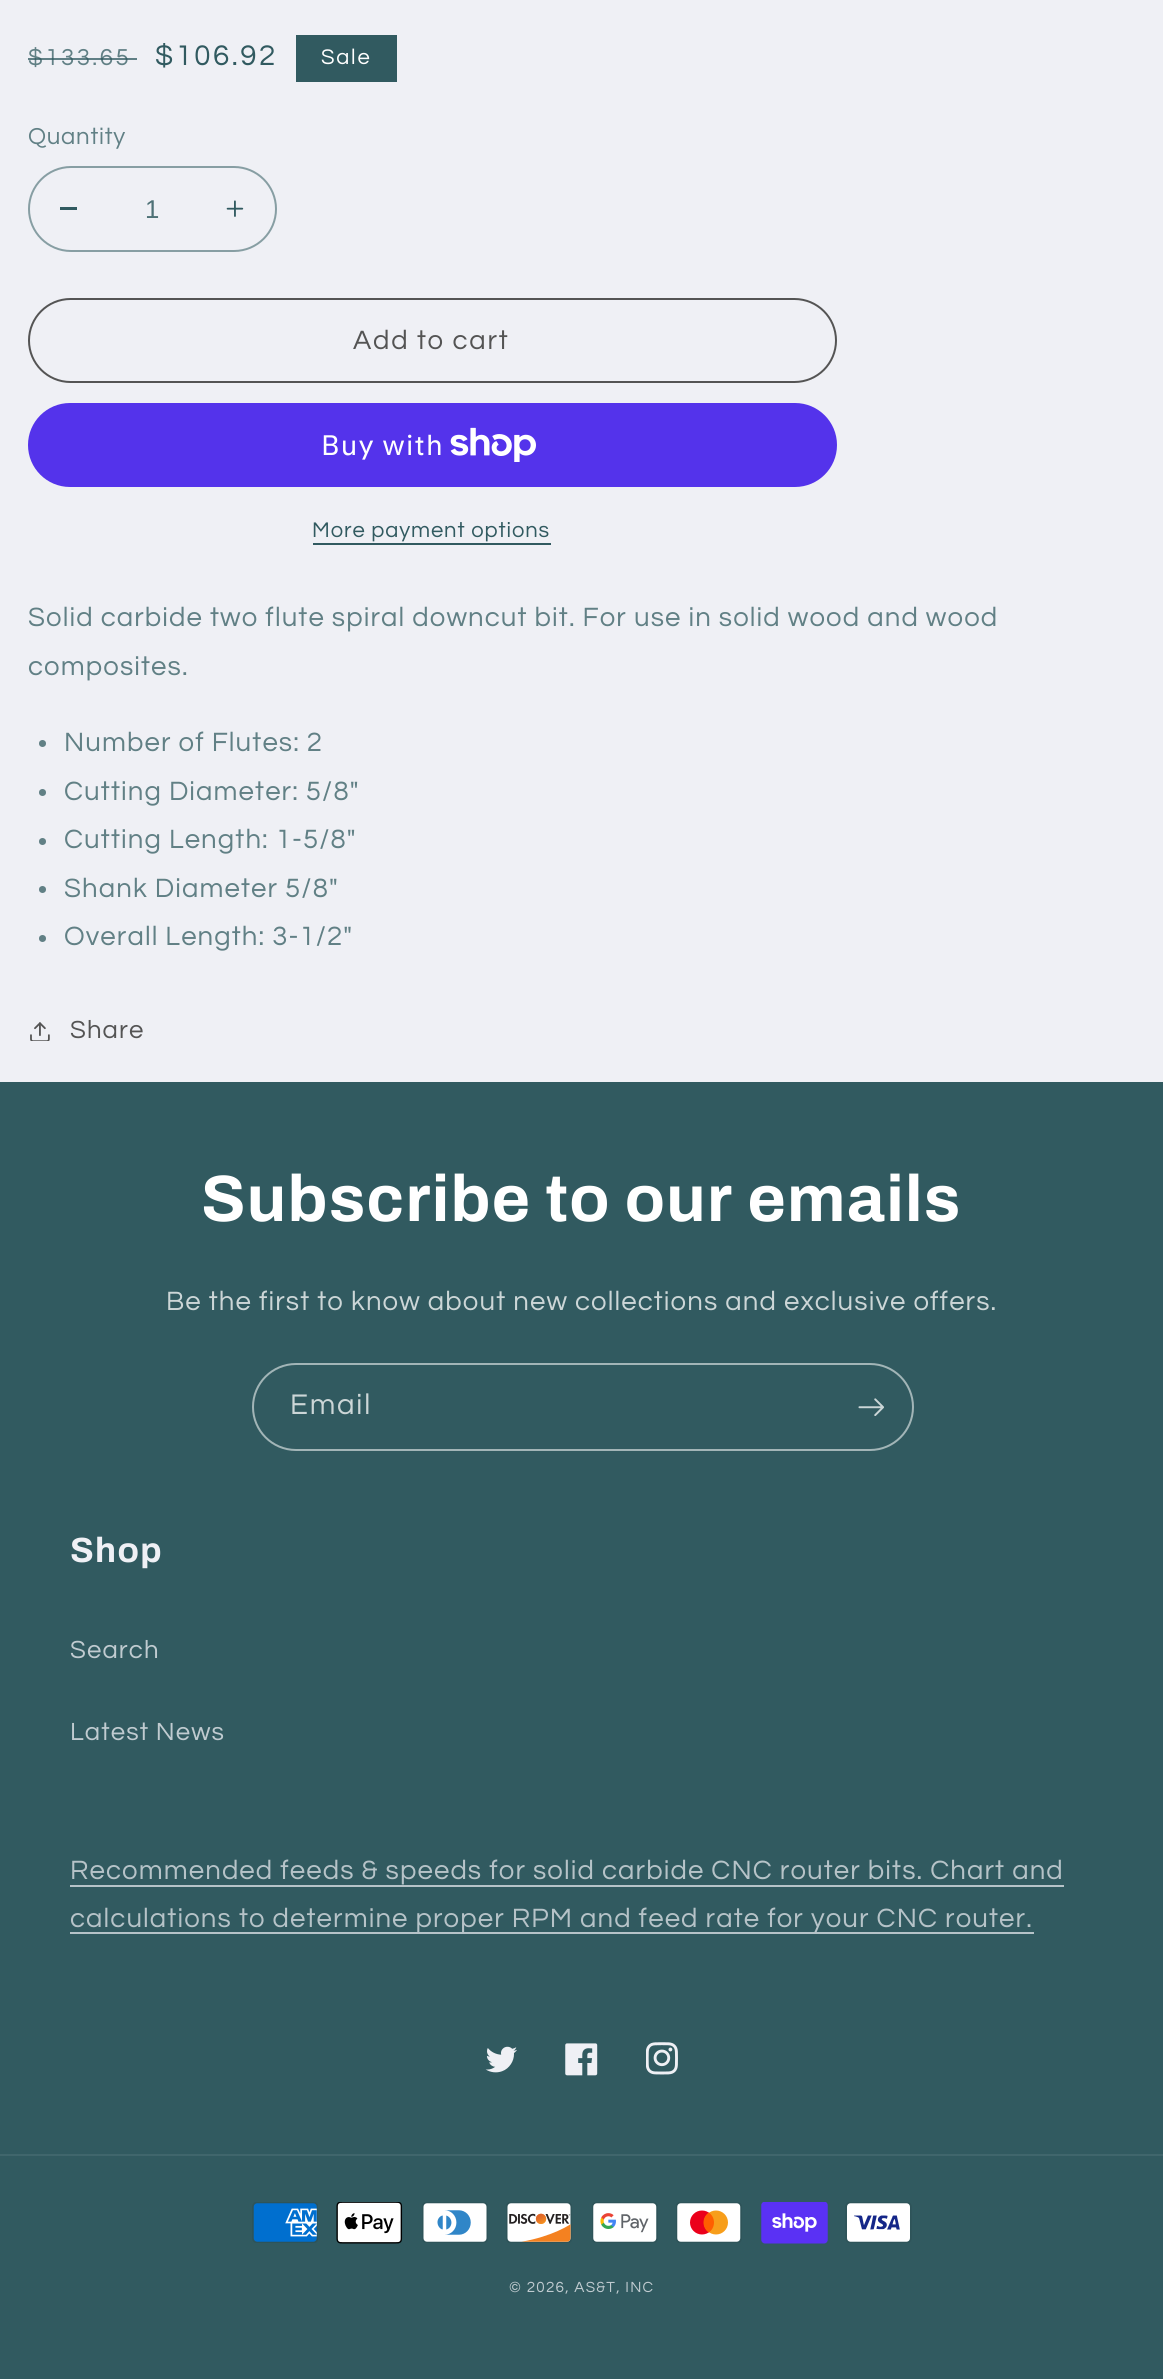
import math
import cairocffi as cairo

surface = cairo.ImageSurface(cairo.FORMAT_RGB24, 1163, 2379)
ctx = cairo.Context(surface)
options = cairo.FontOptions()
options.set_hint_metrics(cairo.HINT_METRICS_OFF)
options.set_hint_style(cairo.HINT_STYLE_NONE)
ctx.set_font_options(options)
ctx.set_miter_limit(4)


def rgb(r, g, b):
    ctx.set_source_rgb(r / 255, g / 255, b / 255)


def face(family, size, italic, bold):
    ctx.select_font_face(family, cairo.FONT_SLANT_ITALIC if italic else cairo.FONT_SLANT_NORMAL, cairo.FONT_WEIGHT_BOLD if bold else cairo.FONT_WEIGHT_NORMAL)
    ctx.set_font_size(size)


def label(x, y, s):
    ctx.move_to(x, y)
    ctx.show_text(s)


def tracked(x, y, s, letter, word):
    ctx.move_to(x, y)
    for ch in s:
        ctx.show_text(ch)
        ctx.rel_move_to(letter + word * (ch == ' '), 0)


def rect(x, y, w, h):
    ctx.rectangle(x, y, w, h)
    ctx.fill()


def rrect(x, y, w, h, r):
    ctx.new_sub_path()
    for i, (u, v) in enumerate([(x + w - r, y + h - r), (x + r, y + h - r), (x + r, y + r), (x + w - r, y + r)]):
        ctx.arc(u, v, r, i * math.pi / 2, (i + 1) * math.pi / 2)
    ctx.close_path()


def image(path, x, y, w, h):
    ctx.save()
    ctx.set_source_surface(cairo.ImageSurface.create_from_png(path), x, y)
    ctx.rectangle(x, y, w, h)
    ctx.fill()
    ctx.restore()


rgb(239, 240, 245)
ctx.paint()
face('Questrial', 24, 0, 0)
rgb(97, 128, 133)
tracked(28, 65, '$133.65', 2.5, 0)
ctx.set_source_rgba(0.192, 0.353, 0.376, 0.75)
rect(28, 58, 109, 2)
face('Questrial', 29.5, 0, 0)
rgb(49, 90, 96)
tracked(155, 65, '$106.92', 2.5, 0)
rect(296, 35, 101, 47)
face('Questrial', 22, 0, 0)
rgb(255, 255, 255)
tracked(321, 64, 'Sale', 1.75, 0)
face('Questrial', 24, 0, 0)
rgb(97, 128, 133)
tracked(28, 144, 'Quantity', 0.75, 0)
rgb(49, 90, 96)
rect(60, 207, 17, 3)
image('image0.png', 226, 200, 18, 17)
rrect(29, 167, 247, 84, 42)
rgb(135, 158, 163)
ctx.stroke()
face('Liberation Sans', 25.75, 0, 0)
rgb(78, 113, 118)
label(145, 218, '1')
rrect(29, 299, 807, 83, 41.5)
rgb(84, 84, 84)
ctx.stroke()
face('Questrial', 27.55, 0, 0)
tracked(353, 349, 'Add to cart', 1.75, 0)
rgb(84, 51, 235)
rrect(28, 403, 809, 84, 42)
ctx.fill()
face('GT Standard', 28, 0, 0)
rgb(255, 255, 255)
tracked(321, 455, 'Buy with', 1.1, 0)
image('image1.png', 450, 427, 86, 35)
face('Questrial', 22, 0, 0)
rgb(49, 90, 96)
tracked(312, 537, 'More payment options', 0.9, 0)
rect(313, 543, 238, 2)
face('Questrial', 27.55, 0, 0)
rgb(97, 128, 133)
tracked(28, 626, 'Solid carbide two flute spiral downcut bit. For use in solid wood and wood', 1.1, 0)
tracked(28, 675, 'composites.', 1.1, 0)
ctx.new_path()
ctx.arc(42.5, 743.5, 3.5, 0, 2 * math.pi)
ctx.fill()
tracked(64, 751, 'Number of Flutes: 2', 1.1, 0)
ctx.new_path()
ctx.arc(42.5, 792.5, 3.5, 0, 2 * math.pi)
ctx.fill()
tracked(64, 800, 'Cutting Diameter: 5/8"', 1.1, 0)
ctx.new_path()
ctx.arc(42.5, 841.5, 3.5, 0, 2 * math.pi)
ctx.fill()
tracked(64, 848, 'Cutting Length: 1-5/8"', 1.1, 0)
ctx.new_path()
ctx.arc(42.5, 889.5, 3.5, 0, 2 * math.pi)
ctx.fill()
tracked(64, 897, 'Shank Diameter 5/8"', 1.1, 0)
ctx.new_path()
ctx.arc(42.5, 938.5, 3.5, 0, 2 * math.pi)
ctx.fill()
tracked(64, 945, 'Overall Length: 3-1/2"', 1.1, 0)
image('image2.png', 30, 1022, 20, 19)
face('Questrial', 25.75, 0, 0)
rgb(84, 84, 84)
tracked(70, 1038, 'Share', 1.1, 0)
rgb(49, 90, 96)
rect(0, 1082, 1163, 1297)
face('Archivo', 65.6, 0, 1)
rgb(255, 255, 255)
tracked(201, 1221, 'Subscribe to our emails', 1.3, 0)
face('Questrial', 27.55, 0, 0)
rgb(204, 214, 215)
tracked(166, 1310, 'Be the first to know about new collections and exclusive offers.', 1.1, 0)
rrect(253, 1364, 660, 86, 43)
rgb(162, 181, 183)
ctx.stroke()
face('Questrial', 29.5, 0, 0)
rgb(204, 214, 215)
tracked(290, 1414, 'Email', 1.75, 0)
image('image3.png', 858, 1398, 26, 18)
face('Archivo', 35, 0, 1)
rgb(239, 240, 245)
tracked(70, 1562, 'Shop', 1.3, 0)
face('Questrial', 25.75, 0, 0)
rgb(192, 203, 208)
tracked(70, 1658, 'Search', 1.1, 0)
tracked(70, 1740, 'Latest News', 1.1, 0)
face('Questrial', 27.55, 0, 0)
rgb(182, 195, 200)
tracked(70, 1879, 'Recommended feeds & speeds for solid carbide CNC router bits. Chart and', 1.1, 0)
rect(70, 1885, 994, 2)
rect(70, 1932, 964, 2)
tracked(70, 1927, 'calculations to determine proper RPM and feed rate for your CNC router.', 1.1, 0)
image('image4.png', 485, 2046, 32, 27)
image('image5.png', 565, 2043, 33, 33)
image('image6.png', 646, 2042, 32, 33)
rgb(64, 102, 108)
rect(0, 2154, 1163, 2)
image('image7.png', 252, 2202, 66, 41)
image('image8.png', 336, 2202, 67, 42)
image('image9.png', 422, 2202, 66, 41)
image('image10.png', 506, 2202, 66, 41)
image('image11.png', 592, 2202, 66, 41)
image('image12.png', 676, 2202, 66, 41)
image('image13.png', 761, 2202, 67, 42)
image('image14.png', 845, 2202, 67, 41)
face('Questrial', 15.25, 0, 0)
rgb(192, 203, 208)
tracked(509, 2292, '© 2026, AS&T, INC', 1.25, 0)
surface.write_to_png('render.png')
